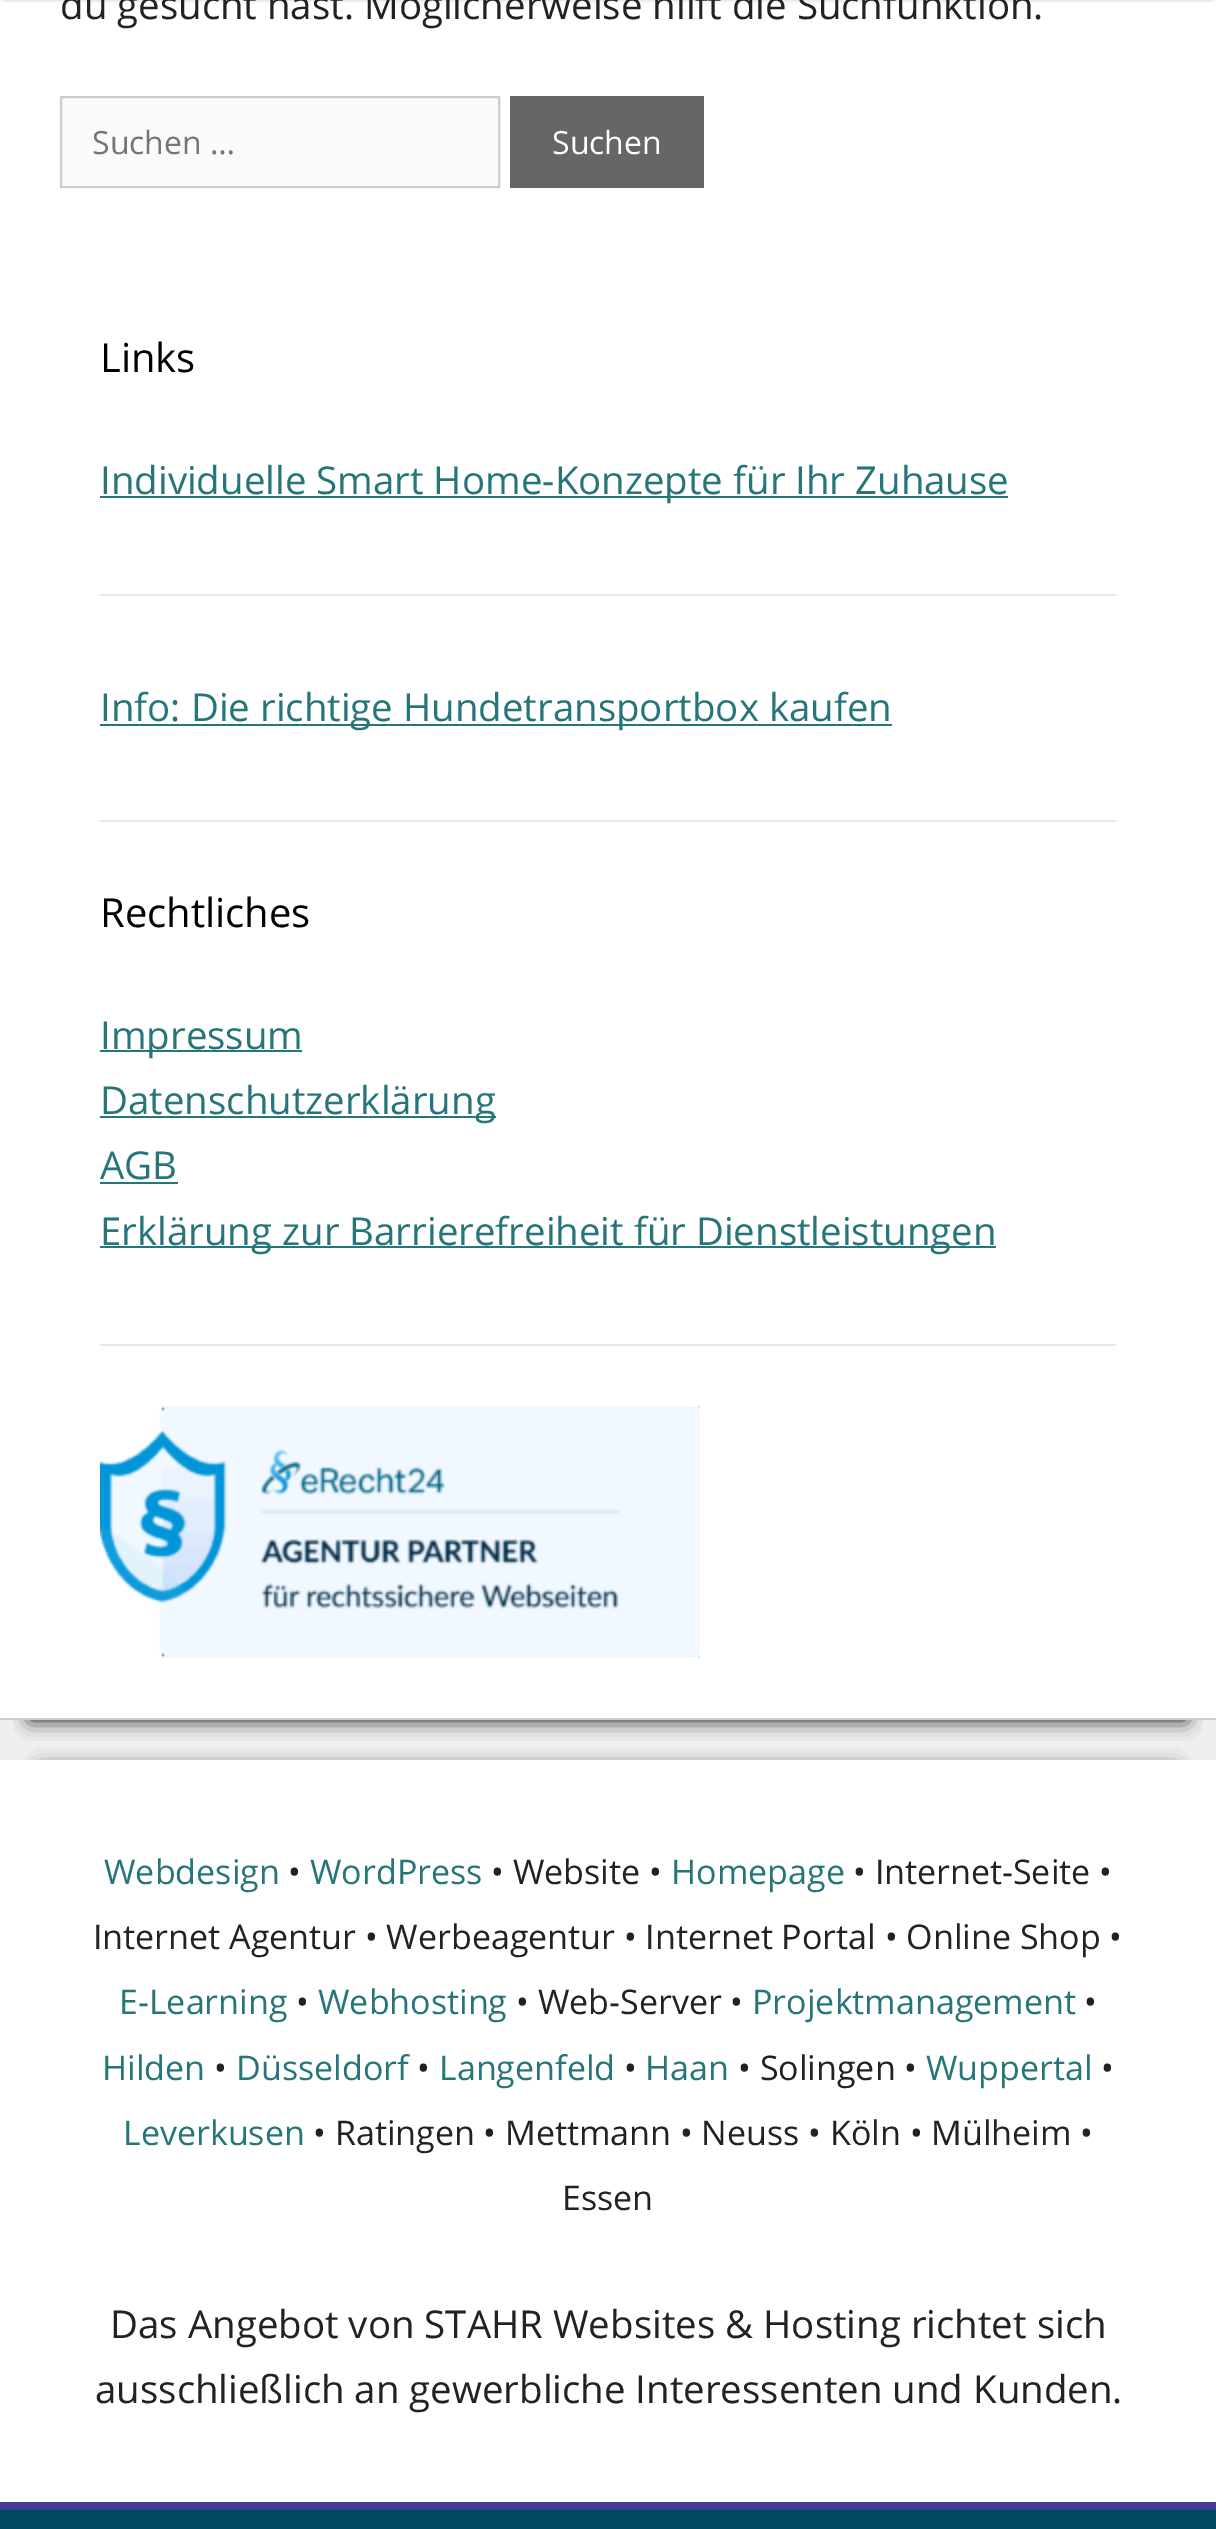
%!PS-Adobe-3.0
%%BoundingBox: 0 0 1216 2529
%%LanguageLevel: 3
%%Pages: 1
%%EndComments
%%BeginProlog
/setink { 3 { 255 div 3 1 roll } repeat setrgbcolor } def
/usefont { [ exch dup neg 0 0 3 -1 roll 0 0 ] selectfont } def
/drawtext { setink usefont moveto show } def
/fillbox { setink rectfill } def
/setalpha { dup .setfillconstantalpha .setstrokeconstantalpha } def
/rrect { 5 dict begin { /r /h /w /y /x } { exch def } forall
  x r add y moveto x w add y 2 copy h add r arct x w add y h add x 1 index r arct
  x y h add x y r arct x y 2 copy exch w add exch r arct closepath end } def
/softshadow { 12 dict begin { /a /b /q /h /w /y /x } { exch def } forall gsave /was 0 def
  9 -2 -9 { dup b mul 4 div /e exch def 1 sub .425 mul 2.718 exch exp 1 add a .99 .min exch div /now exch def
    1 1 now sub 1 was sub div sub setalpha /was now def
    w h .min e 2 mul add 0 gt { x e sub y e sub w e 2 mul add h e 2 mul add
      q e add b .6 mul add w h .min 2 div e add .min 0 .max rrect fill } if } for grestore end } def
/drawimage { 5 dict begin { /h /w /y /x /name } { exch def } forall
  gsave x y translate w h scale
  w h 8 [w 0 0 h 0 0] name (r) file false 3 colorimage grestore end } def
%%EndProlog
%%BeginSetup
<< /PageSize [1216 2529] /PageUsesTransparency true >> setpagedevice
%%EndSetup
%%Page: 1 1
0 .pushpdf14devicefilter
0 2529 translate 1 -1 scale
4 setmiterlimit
0 0 1216 2529 239 239 239 fillbox
0 0 1216 1718 255 255 255 fillbox
0 0 0 setink
4 -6 1208 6 0 2 0.2 softshadow
gsave
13 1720 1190 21 rectclip
17 17 17 setink
30 -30 1156 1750 0 10 1 softshadow
grestore
0 1718 1216 2 204 204 204 fillbox
(du gesucht hast. Möglicherweise hilft die Suchfunktion.) 60 19 /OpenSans-Regular 38.4 34 34 34 drawtext
250 250 250 setink
61 97 moveto 499 97 lineto 499 187 lineto 61 187 lineto closepath gsave fill grestore
204 204 204 setink
2 setlinewidth
stroke
(Suchen …) 92 154 /OpenSans-Regular 32 117 117 117 drawtext
510 96 194 92 102 102 102 fillbox
(Suchen) 552 154 /OpenSans-Regular 32 255 255 255 drawtext
(Links) 100 372 /OpenSans-Regular 40 0 0 0 drawtext
100 496 908 2 37 117 121 fillbox
(Individuelle Smart Home-Konzepte für Ihr Zuhause) 100 494 /OpenSans-Regular 38.4 37 117 121 drawtext
100 594 1016 2 230 230 230 fillbox
100 724 792 2 37 117 121 fillbox
(Info: Die richtige Hundetransportbox kaufen) 100 721 /OpenSans-Regular 38.4 37 117 121 drawtext
100 820 1016 2 230 230 230 fillbox
(Rechtliches) 100 927 /OpenSans-Regular 40 0 0 0 drawtext
100 1050 202 2 37 117 121 fillbox
(Impressum) 100 1049 /OpenSans-Regular 38.4 37 117 121 drawtext
100 1116 396 2 37 117 121 fillbox
(Datenschutzerklärung) 100 1114 /OpenSans-Regular 38.4 37 117 121 drawtext
(AGB) 100 1179 /OpenSans-Regular 38.4 37 117 121 drawtext
100 1182 78 2 37 117 121 fillbox
100 1246 896 2 37 117 121 fillbox
(Erklärung zur Barrierefreiheit für Dienstleistungen) 100 1245 /OpenSans-Regular 38.4 37 117 121 drawtext
100 1344 1016 2 230 230 230 fillbox
(assets/img1.rgb) 100 1406 600 252 drawimage
17 17 17 setink
40 1770 1136 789 0 10 1 softshadow
0 1760 1216 742 255 255 255 fillbox
(Webdesign) 104 1884 /OpenSans-Regular 34 37 117 121 drawtext
(•) 288 1884 /OpenSans-Regular 34 34 34 34 drawtext
(WordPress) 310 1884 /OpenSans-Regular 34 37 117 121 drawtext
(• Website •) 491 1884 /OpenSans-Regular 34 34 34 34 drawtext
(Homepage) 671 1884 /OpenSans-Regular 34 37 117 121 drawtext
(• Internet-Seite •) 853 1884 /OpenSans-Regular 34 34 34 34 drawtext
(Internet Agentur • Werbeagentur • Internet Portal • Online Shop •) 93 1949 /OpenSans-Regular 34 34 34 34 drawtext
(E-Learning) 119 2014 /OpenSans-Regular 34 37 117 121 drawtext
(•) 296 2014 /OpenSans-Regular 34 34 34 34 drawtext
(Webhosting) 318 2014 /OpenSans-Regular 34 37 117 121 drawtext
(• Web-Server •) 516 2014 /OpenSans-Regular 34 34 34 34 drawtext
(Projektmanagement) 752 2014 /OpenSans-Regular 34 37 117 121 drawtext
(•) 1084 2014 /OpenSans-Regular 34 34 34 34 drawtext
(Hilden) 102 2080 /OpenSans-Regular 34 37 117 121 drawtext
(•) 214 2080 /OpenSans-Regular 34 34 34 34 drawtext
(Düsseldorf) 236 2080 /OpenSans-Regular 34 37 117 121 drawtext
(•) 417 2080 /OpenSans-Regular 34 34 34 34 drawtext
(Langenfeld) 439 2080 /OpenSans-Regular 34 37 117 121 drawtext
(•) 624 2080 /OpenSans-Regular 34 34 34 34 drawtext
(Haan) 645 2080 /OpenSans-Regular 34 37 117 121 drawtext
(• Solingen •) 738 2080 /OpenSans-Regular 34 34 34 34 drawtext
(Wuppertal) 926 2080 /OpenSans-Regular 34 37 117 121 drawtext
(•) 1101 2080 /OpenSans-Regular 34 34 34 34 drawtext
(Leverkusen) 123 2145 /OpenSans-Regular 34 37 117 121 drawtext
(• Ratingen • Mettmann • Neuss • Köln • Mülheim •) 313 2145 /OpenSans-Regular 34 34 34 34 drawtext
(Essen) 562 2210 /OpenSans-Regular 34 34 34 34 drawtext
(Das Angebot von STAHR Websites & Hosting richtet sich) 110 2338 /OpenSans-Regular 38.4 34 34 34 drawtext
(ausschließlich an gewerbliche Interessenten und Kunden.) 95 2403 /OpenSans-Regular 38.4 34 34 34 drawtext
0 2510 1216 19 0 74 96 fillbox
0 2502 1216 8 69 60 152 fillbox
.poppdf14devicefilter showpage
%%EOF
